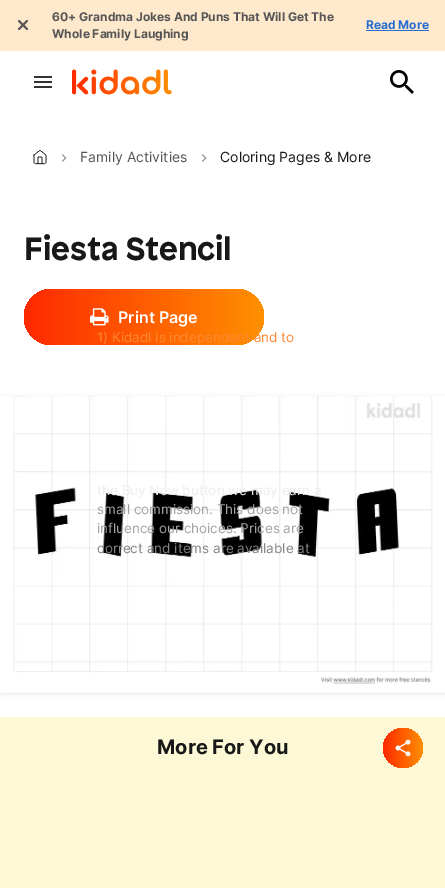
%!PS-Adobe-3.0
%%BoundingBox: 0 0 445 888
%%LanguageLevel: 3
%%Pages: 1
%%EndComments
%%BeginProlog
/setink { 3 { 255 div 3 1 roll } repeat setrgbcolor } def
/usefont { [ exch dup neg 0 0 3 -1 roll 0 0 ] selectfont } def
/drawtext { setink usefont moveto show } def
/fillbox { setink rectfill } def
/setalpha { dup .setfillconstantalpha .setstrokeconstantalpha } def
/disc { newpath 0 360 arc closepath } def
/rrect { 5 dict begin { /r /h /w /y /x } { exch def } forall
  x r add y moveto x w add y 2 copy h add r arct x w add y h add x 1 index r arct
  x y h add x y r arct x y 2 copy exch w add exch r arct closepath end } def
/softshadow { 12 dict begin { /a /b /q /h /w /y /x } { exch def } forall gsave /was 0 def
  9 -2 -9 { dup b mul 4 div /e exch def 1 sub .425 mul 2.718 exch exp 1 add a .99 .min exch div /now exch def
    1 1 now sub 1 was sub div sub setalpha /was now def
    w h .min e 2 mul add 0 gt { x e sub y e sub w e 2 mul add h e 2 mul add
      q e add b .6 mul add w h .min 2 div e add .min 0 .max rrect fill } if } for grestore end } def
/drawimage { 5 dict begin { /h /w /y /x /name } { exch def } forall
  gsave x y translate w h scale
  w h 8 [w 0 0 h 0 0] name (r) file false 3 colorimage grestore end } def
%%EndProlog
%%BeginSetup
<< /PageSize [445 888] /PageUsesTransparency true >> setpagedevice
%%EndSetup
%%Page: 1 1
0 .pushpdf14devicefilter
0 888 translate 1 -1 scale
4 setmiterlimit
0 0 445 888 255 255 255 fillbox
0 0 445 51 255 233 204 fillbox
(60+ Grandma Jokes And Puns That Will Get The) 52 21 /Inter-Bold 12 86 86 86 drawtext
(Whole Family Laughing) 52 38 /Inter-Bold 12 86 86 86 drawtext
90 90 90 setink
2 setlinewidth
1 setlinecap
1 setlinejoin
27 21 moveto 19 29 lineto 19 21 moveto 27 29 lineto stroke
(Read More) 366 29 /Inter-Bold 12 38 109 211 drawtext
366 30 63 1 38 109 211 fillbox
34 76 18 2 51 51 51 fillbox
34 81 18 2 51 51 51 fillbox
34 86 18 2 51 51 51 fillbox
(assets/img1.rgb) 72 69 100 26 drawimage
(assets/img2.rgb) 390 70 24 24 drawimage
(assets/img3.rgb) 33 150 14 15 drawimage
(assets/img4.rgb) 62 154 5 8 drawimage
(Family Activities) 80 162 /Inter-Regular 14 86 86 86 drawtext
(assets/img4.rgb) 202 154 5 8 drawimage
(Coloring Pages & More) 220 162 /Inter-Regular 14 24 24 24 drawtext
(Fiesta Stencil) 24 260 /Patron-Bold 32 24 24 24 drawtext
gsave 24 289 240 56 28 rrect clip newpath
<< /ShadingType 2 /ColorSpace /DeviceRGB /Coords [24 317 264 317] /Extend [true true] /Function << /FunctionType 2 /Domain [0 1] /C0 [0.996 0.161 0] /C1 [1 0.565 0] /N 1 >> >> shfill grestore
(assets/img5.rgb) 90 308 19 18 drawimage
(Print Page) 118 323 /Inter-SemiBold 16 255 255 255 drawtext
(1\) Kidadl is independent and to) 97 342 /Inter-Regular 13.5 255 136 51 drawtext
gsave
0 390 moveto 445 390 lineto 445 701 lineto 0 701 lineto closepath 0 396 moveto 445 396 lineto 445 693 lineto 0 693 lineto closepath eoclip newpath
0 0 0 setink
1 397 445 297 0 2 0.1 softshadow
grestore
(assets/img6.rgb) 13 396 420 288 drawimage
(the Buy Now button we may earn a) 97 495 /Inter-Regular 13.5 236 236 236 drawtext
(small commission. This does not) 97 514 /Inter-Regular 13.5 162 162 162 drawtext
(influence our choices. Prices are) 97 533 /Inter-Regular 13.5 162 162 162 drawtext
(correct and items are available at) 97 553 /Inter-Regular 13.5 132 132 132 drawtext
0 717 445 171 253 248 213 fillbox
(More For You) 157 754 /Inter-Bold 20 24 24 24 drawtext
gsave 403 748 20 disc clip newpath
<< /ShadingType 2 /ColorSpace /DeviceRGB /Coords [383 748 423 748] /Extend [true true] /Function << /FunctionType 2 /Domain [0 1] /C0 [0.996 0.161 0] /C1 [1 0.565 0] /N 1 >> >> shfill grestore
(assets/img7.rgb) 395 739 16 18 drawimage
.poppdf14devicefilter showpage
%%EOF
